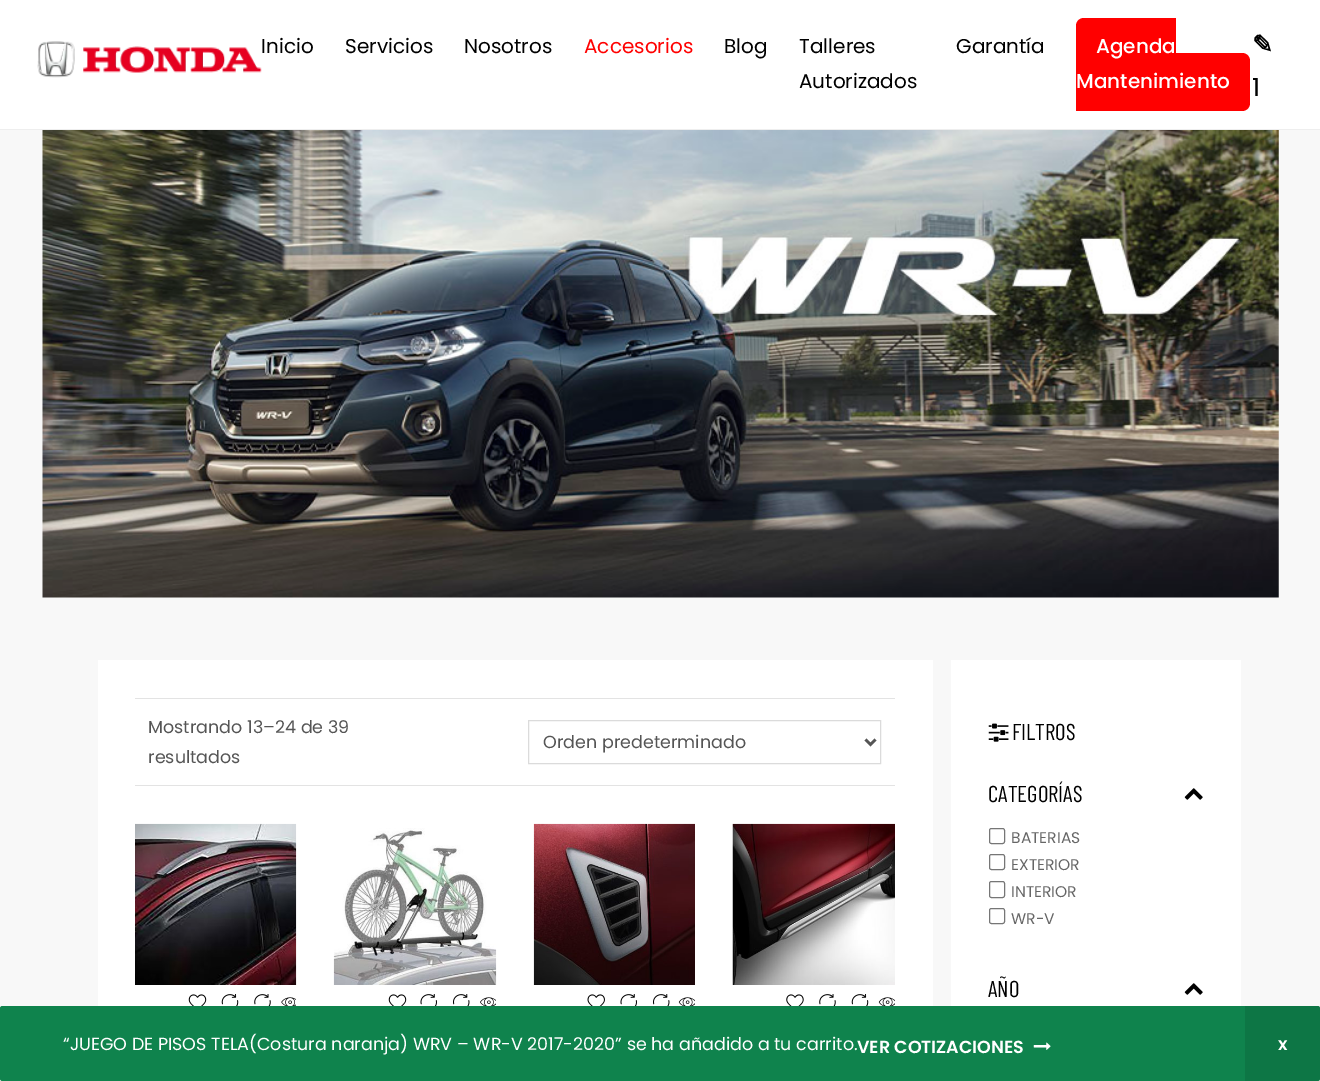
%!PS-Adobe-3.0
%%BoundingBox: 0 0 1320 1081
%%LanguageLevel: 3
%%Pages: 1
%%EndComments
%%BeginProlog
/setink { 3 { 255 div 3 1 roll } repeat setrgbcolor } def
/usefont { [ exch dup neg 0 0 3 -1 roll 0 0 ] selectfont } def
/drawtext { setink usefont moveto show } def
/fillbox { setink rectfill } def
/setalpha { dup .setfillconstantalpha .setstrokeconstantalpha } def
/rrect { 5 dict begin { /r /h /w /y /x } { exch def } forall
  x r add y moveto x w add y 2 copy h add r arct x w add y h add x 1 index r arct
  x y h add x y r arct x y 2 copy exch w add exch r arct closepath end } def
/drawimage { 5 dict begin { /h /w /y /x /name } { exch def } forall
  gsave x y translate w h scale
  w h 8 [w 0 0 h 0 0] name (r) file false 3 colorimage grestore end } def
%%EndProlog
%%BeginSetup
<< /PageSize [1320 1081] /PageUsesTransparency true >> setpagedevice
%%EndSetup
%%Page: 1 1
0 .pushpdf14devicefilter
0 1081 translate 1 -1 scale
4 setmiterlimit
0 0 1320 1081 248 248 248 fillbox
0 0 1320 129 255 255 255 fillbox
0 129 1320 1 238 238 238 fillbox
(assets/img1.rgb) 37 41 225 37 drawimage
(Inicio) 261 53 /Poppins-Regular 20 0 0 0 drawtext
(Servicios) 345 53 /Poppins-Regular 20 0 0 0 drawtext
(Nosotros) 464 53 /Poppins-Regular 20 0 0 0 drawtext
(Accesorios) 584 53 /Poppins-Regular 20 255 0 0 drawtext
(Blog) 724 53 /Poppins-Regular 20 0 0 0 drawtext
(Talleres) 799 53 /Poppins-Regular 20 0 0 0 drawtext
(Autorizados) 799 88 /Poppins-Regular 20 0 0 0 drawtext
(Garantía) 956 53 /Poppins-Regular 20 0 0 0 drawtext
255 0 0 setink
1084 18 moveto 1176 18 lineto 1176 76 lineto 1084 76 lineto 1079.5 76 1076 72.5 1076 68 curveto 1076 26 lineto 1076 21.5 1079.5 18 1084 18 curveto closepath fill
1076 53 moveto 1242 53 lineto 1246.5 53 1250 56.5 1250 61 curveto 1250 103 lineto 1250 107.5 1246.5 111 1242 111 curveto 1076 111 lineto closepath fill
(Agenda) 1096 53 /Poppins-Medium 20 255 255 255 drawtext
(Mantenimiento) 1076 88 /Poppins-Medium 20 255 255 255 drawtext
(✎) 1252 53 /DejaVuSans-Bold 25 0 0 0 drawtext
(1) 1252 96 /Poppins-Regular 25 0 0 0 drawtext
(assets/img2.rgb) 42 130 1237 468 drawimage
98 660 835 346 255 255 255 fillbox
135 698 760 1 227 227 227 fillbox
135 785 760 1 227 227 227 fillbox
(Mostrando 13–24 de 39) 148 733 /Poppins-Regular 17.5 85 85 85 drawtext
(resultados) 148 763 /Poppins-Regular 17.5 85 85 85 drawtext
219 219 219 setink
528.5 720.5 352 43 rectstroke
85 85 85 setink
2.5 setlinewidth
865.5 739.5 moveto 870.5 744.5 lineto 875.5 739.5 lineto stroke
(Orden predeterminado) 543 748 /Poppins-Regular 17.5 85 85 85 drawtext
(assets/img3.rgb) 135 823 162 162 drawimage
(assets/img4.rgb) 188 994 19 12 drawimage
(assets/img5.rgb) 221 994 18 12 drawimage
(assets/img6.rgb) 254 994 17 12 drawimage
(assets/img7.rgb) 281 997 15 9 drawimage
(assets/img8.rgb) 333 828 164 157 drawimage
(assets/img4.rgb) 388 994 19 12 drawimage
(assets/img9.rgb) 420 994 17 12 drawimage
(assets/img10.rgb) 453 994 17 12 drawimage
(assets/img11.rgb) 480 997 16 9 drawimage
(assets/img12.rgb) 533 823 162 162 drawimage
(assets/img13.rgb) 587 994 18 12 drawimage
(assets/img9.rgb) 620 994 17 12 drawimage
(assets/img10.rgb) 653 994 17 12 drawimage
(assets/img14.rgb) 678 997 17 9 drawimage
(assets/img15.rgb) 732 823 163 162 drawimage
(assets/img16.rgb) 786 994 18 12 drawimage
(assets/img6.rgb) 819 994 17 12 drawimage
(assets/img5.rgb) 851 994 18 12 drawimage
(assets/img14.rgb) 878 997 17 9 drawimage
15 131 77 setink
0 1006 1320 75 2.5 rrect fill
(“JUEGO DE PISOS TELA\(Costura naranja\) WRV – WR-V 2017-2020” se ha añadido a tu carrito.) 63 1050 /Poppins-Regular 17.5 255 255 255 drawtext
(VER COTIZACIONES) 857 1053 /Poppins-SemiBold 17.5 255 255 255 drawtext
(assets/img17.rgb) 1033 1042 18 8 drawimage
0.1 setalpha
1245 1006 75 75 0 0 0 fillbox
1 setalpha
(x) 1278 1050 /Poppins-SemiBold 17.5 255 255 255 drawtext
951 660 290 346 255 255 255 fillbox
(assets/img18.rgb) 988 723 21 19 drawimage
(FILTROS) 1012 740 /BarlowCondensed-Regular 23 0 0 0 drawtext
(CATEGORÍAS) 988 802 /BarlowCondensed-Regular 23 0 0 0 drawtext
(assets/img19.rgb) 1184 788 19 12 drawimage
118 118 118 setink
1 setlinewidth
989.5 828.5 15 15 2 rrect stroke
(BATERIAS) 1011 843 /Poppins-Regular 15.5 102 102 102 drawtext
118 118 118 setink
989.5 854.5 15 15 2 rrect stroke
(EXTERIOR) 1011 870 /Poppins-Regular 15.5 102 102 102 drawtext
118 118 118 setink
989.5 881.5 15 16 2 rrect stroke
(INTERIOR) 1011 897 /Poppins-Regular 15.5 102 102 102 drawtext
118 118 118 setink
989.5 908.5 15 15 2 rrect stroke
(WR-V) 1011 924 /Poppins-Regular 15.5 102 102 102 drawtext
(AÑO) 988 997 /BarlowCondensed-Regular 23 0 0 0 drawtext
(assets/img19.rgb) 1184 983 19 12 drawimage
.poppdf14devicefilter showpage
%%EOF
